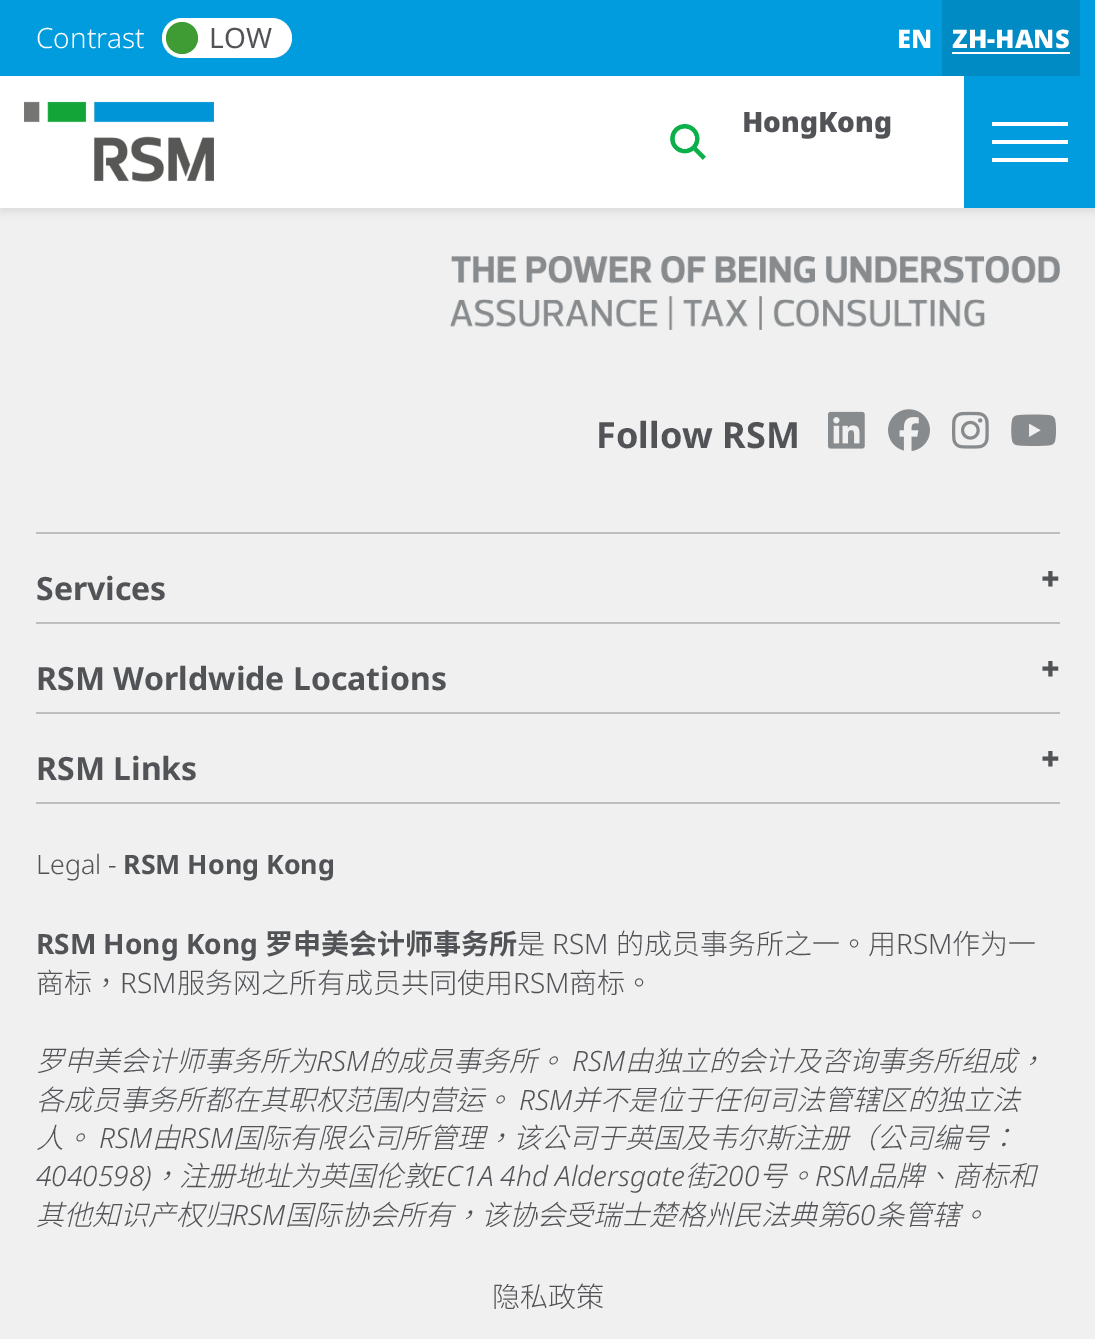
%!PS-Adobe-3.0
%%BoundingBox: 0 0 1095 1339
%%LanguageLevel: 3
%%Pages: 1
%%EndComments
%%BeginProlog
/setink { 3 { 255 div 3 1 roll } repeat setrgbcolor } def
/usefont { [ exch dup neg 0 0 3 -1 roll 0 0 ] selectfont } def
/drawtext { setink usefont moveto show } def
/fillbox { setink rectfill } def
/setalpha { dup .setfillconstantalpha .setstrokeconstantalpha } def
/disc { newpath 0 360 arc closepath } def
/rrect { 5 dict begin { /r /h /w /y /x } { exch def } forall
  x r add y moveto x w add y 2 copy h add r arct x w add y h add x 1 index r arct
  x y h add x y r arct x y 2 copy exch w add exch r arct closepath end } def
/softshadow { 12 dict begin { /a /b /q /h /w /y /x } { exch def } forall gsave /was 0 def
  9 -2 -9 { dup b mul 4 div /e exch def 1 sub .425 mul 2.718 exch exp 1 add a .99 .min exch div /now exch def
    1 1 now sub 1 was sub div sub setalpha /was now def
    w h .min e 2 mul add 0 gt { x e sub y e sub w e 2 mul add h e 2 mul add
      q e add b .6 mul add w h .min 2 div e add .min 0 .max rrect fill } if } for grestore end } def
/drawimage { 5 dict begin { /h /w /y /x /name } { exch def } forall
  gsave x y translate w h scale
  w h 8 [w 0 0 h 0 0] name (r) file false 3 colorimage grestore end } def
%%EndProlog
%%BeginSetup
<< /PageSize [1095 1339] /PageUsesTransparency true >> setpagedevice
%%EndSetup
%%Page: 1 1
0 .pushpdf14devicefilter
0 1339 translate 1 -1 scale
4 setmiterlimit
0 0 1095 1339 240 240 240 fillbox
0 0 0 setink
0 4 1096 208 0 4 0.07 softshadow
0 76 964 132 255 255 255 fillbox
0 0 1095 76 0 156 222 fillbox
(Contrast) 36 48 /NotoSans-Light 28 255 255 255 drawtext
162 18 130 40 20 rrect fill
63 156 53 setink
182 38 16 disc fill
(LOW) 209 48 /NotoSans-Regular 28 81 83 86 drawtext
(EN) 897 48 /NotoSans-Black 25.5 255 255 255 drawtext
942 0 138 76 0 139 197 fillbox
(ZH-HANS) 952 48 /NotoSans-Black 25.5 255 255 255 drawtext
952 52 118 2 255 255 255 fillbox
(assets/img1.rgb) 24 101 190 81 drawimage
(assets/img2.rgb) 670 124 36 36 drawimage
(HongKong) 742 132 /NotoSans-Black 28 81 83 86 drawtext
964 76 131 132 0 156 222 fillbox
992 122 76 4 255 255 255 fillbox
992 140 76 4 255 255 255 fillbox
992 158 76 4 255 255 255 fillbox
(assets/img3.rgb) 450 256 610 74 drawimage
(Follow RSM) 596 448 /NotoSans-Bold 36 81 83 86 drawtext
(assets/img4.rgb) 828 411 37 38 drawimage
(assets/img5.rgb) 888 409 42 42 drawimage
(assets/img6.rgb) 952 411 37 38 drawimage
(assets/img7.rgb) 1011 414 45 32 drawimage
36 532 1024 2 190 190 190 fillbox
36 622 1024 2 190 190 190 fillbox
(Services) 36 600 /NotoSans-Bold 32 81 83 86 drawtext
(+) 1041 590 /NotoSans-Black 32 81 83 86 drawtext
36 712 1024 2 190 190 190 fillbox
(RSM Worldwide Locations) 36 690 /NotoSans-Bold 32 81 83 86 drawtext
(+) 1041 680 /NotoSans-Black 32 81 83 86 drawtext
36 802 1024 2 190 190 190 fillbox
(RSM Links) 36 780 /NotoSans-Bold 32 81 83 86 drawtext
(+) 1041 770 /NotoSans-Black 32 81 83 86 drawtext
(Legal -) 36 874 /NotoSans-Light 26.75 81 83 86 drawtext
(RSM Hong Kong) 123 874 /NotoSans-Bold 26.75 81 83 86 drawtext
(RSM Hong Kong) 36 954 /NotoSans-Bold 28 81 83 86 drawtext
(罗) 265 954 /NotoSansSC-Bold 28 81 83 86 drawtext
(申美会) 293 954 /NotoSansTC-Bold 28 81 83 86 drawtext
(计师) 377 954 /NotoSansSC-Bold 28 81 83 86 drawtext
(事务所) 433 954 /NotoSansTC-Bold 28 81 83 86 drawtext
(是) 517 954 /NotoSansTC-Light 28 81 83 86 drawtext
(RSM) 552 954 /NotoSans-Light 28 81 83 86 drawtext
(的成) 616 954 /NotoSansTC-Light 28 81 83 86 drawtext
(员) 672 954 /NotoSansSC-Light 28 81 83 86 drawtext
(事务所之一。用) 700 954 /NotoSansTC-Light 28 81 83 86 drawtext
(RSM) 896 954 /NotoSans-Light 28 81 83 86 drawtext
(作) 952 954 /NotoSansTC-Light 28 81 83 86 drawtext
(为) 980 954 /NotoSansSC-Light 28 81 83 86 drawtext
(一) 1008 954 /NotoSansTC-Light 28 81 83 86 drawtext
(商) 36 993 /NotoSansTC-Light 28 81 83 86 drawtext
(标) 64 993 /NotoSansSC-Light 28 81 83 86 drawtext
(，) 92 993 /NotoSansTC-Light 28 81 83 86 drawtext
(RSM) 120 993 /NotoSans-Light 28 81 83 86 drawtext
(服务网之所有成) 177 993 /NotoSansTC-Light 28 81 83 86 drawtext
(员) 373 993 /NotoSansSC-Light 28 81 83 86 drawtext
(共同使用) 401 993 /NotoSansTC-Light 28 81 83 86 drawtext
(RSM) 513 993 /NotoSans-Light 28 81 83 86 drawtext
(商) 569 993 /NotoSansTC-Light 28 81 83 86 drawtext
(标) 597 993 /NotoSansSC-Light 28 81 83 86 drawtext
(。) 625 993 /NotoSansTC-Light 28 81 83 86 drawtext
(罗) 36 1071 /NotoSansSC-LightItalic 28 81 83 86 drawtext
(申美会) 64 1071 /NotoSansTC-LightItalic 28 81 83 86 drawtext
(计师) 148 1071 /NotoSansSC-LightItalic 28 81 83 86 drawtext
(事务所) 204 1071 /NotoSansTC-LightItalic 28 81 83 86 drawtext
(为) 288 1071 /NotoSansSC-LightItalic 28 81 83 86 drawtext
(RSM) 316 1071 /NotoSans-LightItalic 28 81 83 86 drawtext
(的成) 369 1071 /NotoSansTC-LightItalic 28 81 83 86 drawtext
(员) 425 1071 /NotoSansSC-LightItalic 28 81 83 86 drawtext
(事务所。) 453 1071 /NotoSansTC-LightItalic 28 81 83 86 drawtext
(RSM) 572 1071 /NotoSans-LightItalic 28 81 83 86 drawtext
(由) 625 1071 /NotoSansTC-LightItalic 28 81 83 86 drawtext
(独) 653 1071 /NotoSansSC-LightItalic 28 81 83 86 drawtext
(立的会) 681 1071 /NotoSansTC-LightItalic 28 81 83 86 drawtext
(计) 765 1071 /NotoSansSC-LightItalic 28 81 83 86 drawtext
(及咨询事务所) 793 1071 /NotoSansTC-LightItalic 28 81 83 86 drawtext
(组) 961 1071 /NotoSansSC-LightItalic 28 81 83 86 drawtext
(成，) 989 1071 /NotoSansTC-LightItalic 28 81 83 86 drawtext
(各成) 36 1110 /NotoSansTC-LightItalic 28 81 83 86 drawtext
(员) 92 1110 /NotoSansSC-LightItalic 28 81 83 86 drawtext
(事务所都在其) 120 1110 /NotoSansTC-LightItalic 28 81 83 86 drawtext
(职权) 288 1110 /NotoSansSC-LightItalic 28 81 83 86 drawtext
(范) 344 1110 /NotoSansTC-LightItalic 28 81 83 86 drawtext
(围内营) 372 1110 /NotoSansSC-LightItalic 28 81 83 86 drawtext
(运。) 456 1110 /NotoSansTC-LightItalic 28 81 83 86 drawtext
(RSM) 519 1110 /NotoSans-LightItalic 28 81 83 86 drawtext
(并不是位于任何司法管) 572 1110 /NotoSansTC-LightItalic 28 81 83 86 drawtext
(辖区) 852 1110 /NotoSansSC-LightItalic 28 81 83 86 drawtext
(的) 908 1110 /NotoSansTC-LightItalic 28 81 83 86 drawtext
(独) 936 1110 /NotoSansSC-LightItalic 28 81 83 86 drawtext
(立法) 964 1110 /NotoSansTC-LightItalic 28 81 83 86 drawtext
(人。) 36 1148 /NotoSansTC-LightItalic 28 81 83 86 drawtext
(RSM) 99 1148 /NotoSans-LightItalic 28 81 83 86 drawtext
(由) 152 1148 /NotoSansTC-LightItalic 28 81 83 86 drawtext
(RSM) 180 1148 /NotoSans-LightItalic 28 81 83 86 drawtext
(国际有限公司所管理，) 233 1148 /NotoSansTC-LightItalic 28 81 83 86 drawtext
(该) 513 1148 /NotoSansSC-LightItalic 28 81 83 86 drawtext
(公司于英国及韦尔斯注) 541 1148 /NotoSansTC-LightItalic 28 81 83 86 drawtext
(册) 821 1148 /NotoSansSC-LightItalic 28 81 83 86 drawtext
(（公司) 849 1148 /NotoSansTC-LightItalic 28 81 83 86 drawtext
(编) 933 1148 /NotoSansSC-LightItalic 28 81 83 86 drawtext
(号：) 961 1148 /NotoSansTC-LightItalic 28 81 83 86 drawtext
(4040598\)) 36 1186 /NotoSans-LightItalic 28 81 83 86 drawtext
(，注) 151 1186 /NotoSansTC-LightItalic 28 81 83 86 drawtext
(册) 207 1186 /NotoSansSC-LightItalic 28 81 83 86 drawtext
(地址) 235 1186 /NotoSansTC-LightItalic 28 81 83 86 drawtext
(为) 291 1186 /NotoSansSC-LightItalic 28 81 83 86 drawtext
(英国) 319 1186 /NotoSansTC-LightItalic 28 81 83 86 drawtext
(伦) 375 1186 /NotoSansSC-LightItalic 28 81 83 86 drawtext
(敦) 403 1186 /NotoSansTC-LightItalic 28 81 83 86 drawtext
(EC1A 4hd Aldersgate) 431 1186 /NotoSans-LightItalic 28 81 83 86 drawtext
(街) 685 1186 /NotoSansTC-LightItalic 28 81 83 86 drawtext
(200) 713 1186 /NotoSans-LightItalic 28 81 83 86 drawtext
(号。) 759 1186 /NotoSansTC-LightItalic 28 81 83 86 drawtext
(RSM) 815 1186 /NotoSans-LightItalic 28 81 83 86 drawtext
(品牌、商) 868 1186 /NotoSansTC-LightItalic 28 81 83 86 drawtext
(标) 980 1186 /NotoSansSC-LightItalic 28 81 83 86 drawtext
(和) 1008 1186 /NotoSansTC-LightItalic 28 81 83 86 drawtext
(其他知) 36 1225 /NotoSansTC-LightItalic 28 81 83 86 drawtext
(识产权归) 120 1225 /NotoSansSC-LightItalic 28 81 83 86 drawtext
(RSM) 232 1225 /NotoSans-LightItalic 28 81 83 86 drawtext
(国际) 285 1225 /NotoSansTC-LightItalic 28 81 83 86 drawtext
(协) 341 1225 /NotoSansSC-LightItalic 28 81 83 86 drawtext
(会所有，) 369 1225 /NotoSansTC-LightItalic 28 81 83 86 drawtext
(该协) 481 1225 /NotoSansSC-LightItalic 28 81 83 86 drawtext
(会受瑞士楚格州民法典第) 537 1225 /NotoSansTC-LightItalic 28 81 83 86 drawtext
(60) 845 1225 /NotoSans-LightItalic 28 81 83 86 drawtext
(条管) 876 1225 /NotoSansTC-LightItalic 28 81 83 86 drawtext
(辖) 932 1225 /NotoSansSC-LightItalic 28 81 83 86 drawtext
(。) 960 1225 /NotoSansTC-LightItalic 28 81 83 86 drawtext
(隐) 492 1307 /NotoSansSC-Light 28 81 83 86 drawtext
(私政策) 520 1307 /NotoSansTC-Light 28 81 83 86 drawtext
.poppdf14devicefilter showpage
%%EOF
